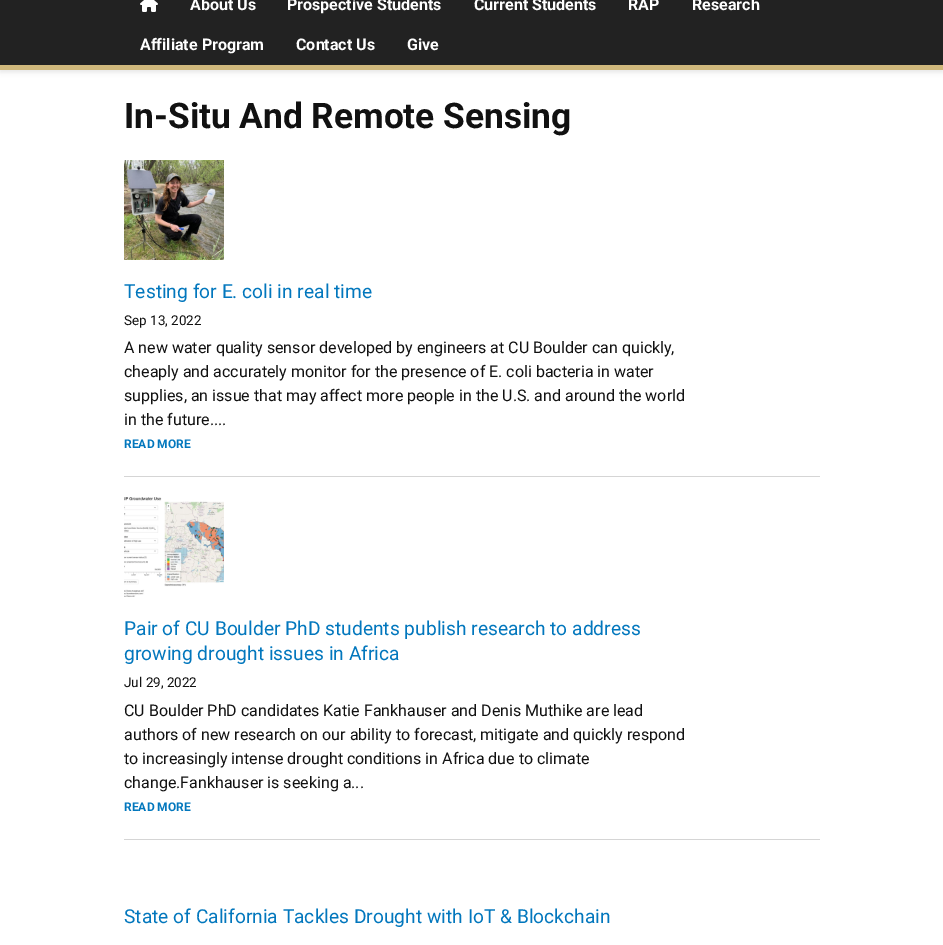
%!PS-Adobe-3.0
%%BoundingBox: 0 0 943 945
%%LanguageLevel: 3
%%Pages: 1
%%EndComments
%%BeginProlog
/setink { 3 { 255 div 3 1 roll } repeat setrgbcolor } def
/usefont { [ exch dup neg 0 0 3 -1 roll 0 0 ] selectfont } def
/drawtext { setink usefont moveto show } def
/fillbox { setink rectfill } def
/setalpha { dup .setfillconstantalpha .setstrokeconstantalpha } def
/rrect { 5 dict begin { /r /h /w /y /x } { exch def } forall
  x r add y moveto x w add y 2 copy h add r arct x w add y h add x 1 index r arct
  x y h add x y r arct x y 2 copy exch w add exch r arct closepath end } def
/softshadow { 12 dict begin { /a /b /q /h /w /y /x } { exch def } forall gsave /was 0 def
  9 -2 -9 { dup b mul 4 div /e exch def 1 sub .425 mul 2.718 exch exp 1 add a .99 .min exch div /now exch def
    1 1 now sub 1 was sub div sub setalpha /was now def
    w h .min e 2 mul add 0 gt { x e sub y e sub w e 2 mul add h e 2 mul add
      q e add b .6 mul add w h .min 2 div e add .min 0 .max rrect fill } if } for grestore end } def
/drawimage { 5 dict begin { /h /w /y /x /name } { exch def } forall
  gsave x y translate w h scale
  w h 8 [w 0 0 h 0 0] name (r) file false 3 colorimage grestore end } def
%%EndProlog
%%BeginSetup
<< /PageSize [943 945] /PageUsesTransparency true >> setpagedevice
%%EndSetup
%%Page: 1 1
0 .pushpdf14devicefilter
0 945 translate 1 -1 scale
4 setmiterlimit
0 0 943 945 255 255 255 fillbox
0 0 0 setink
0 -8 943 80 0 2.5 0.1 softshadow
0 0 943 65 34 34 34 fillbox
0 65 943 5 207 184 124 fillbox
(assets/img1.rgb) 140 0 18 12 drawimage
(About Us) 190 10 /Roboto-Bold 16 255 255 255 drawtext
(Prospective Students) 287 10 /Roboto-Bold 16 255 255 255 drawtext
(Current Students) 474 10 /Roboto-Bold 16 255 255 255 drawtext
(RAP) 628 10 /Roboto-Bold 16 255 255 255 drawtext
(Research) 692 10 /Roboto-Bold 16 255 255 255 drawtext
(Affiliate Program) 140 50 /Roboto-Bold 16 255 255 255 drawtext
(Contact Us) 296 50 /Roboto-Bold 16 255 255 255 drawtext
(Give) 407 50 /Roboto-Bold 16 255 255 255 drawtext
(In-Situ And Remote Sensing) 124 128 /Roboto-Bold 35.25 17 17 17 drawtext
124 476 696 1 213 213 213 fillbox
(assets/img2.rgb) 124 160 100 100 drawimage
(Testing for E. coli in real time) 124 298 /Roboto-Regular 19.2 2 119 189 drawtext
(Sep 13, 2022) 124 325 /Roboto-Regular 13.5 17 17 17 drawtext
(A new water quality sensor developed by engineers at CU Boulder can quickly,) 124 353 /Roboto-Regular 16 17 17 17 drawtext
(cheaply and accurately monitor for the presence of E. coli bacteria in water) 124 377 /Roboto-Regular 16 17 17 17 drawtext
(supplies, an issue that may affect more people in the U.S. and around the world) 124 401 /Roboto-Regular 16 17 17 17 drawtext
(in the future....) 124 425 /Roboto-Regular 16 17 17 17 drawtext
(READ MORE) 124 448 /Roboto-Bold 12 2 119 189 drawtext
124 839 696 1 213 213 213 fillbox
(assets/img3.rgb) 124 497 100 100 drawimage
(Pair of CU Boulder PhD students publish research to address) 124 635 /Roboto-Regular 19.2 2 119 189 drawtext
(growing drought issues in Africa) 124 660 /Roboto-Regular 19.2 2 119 189 drawtext
(Jul 29, 2022) 124 687 /Roboto-Regular 13.5 17 17 17 drawtext
(CU Boulder PhD candidates Katie Fankhauser and Denis Muthike are lead) 124 716 /Roboto-Regular 16 17 17 17 drawtext
(authors of new research on our ability to forecast, mitigate and quickly respond) 124 740 /Roboto-Regular 16 17 17 17 drawtext
(to increasingly intense drought conditions in Africa due to climate) 124 764 /Roboto-Regular 16 17 17 17 drawtext
(change.Fankhauser is seeking a...) 124 788 /Roboto-Regular 16 17 17 17 drawtext
(READ MORE) 124 811 /Roboto-Bold 12 2 119 189 drawtext
(State of California Tackles Drought with IoT & Blockchain) 124 923 /Roboto-Regular 19.2 2 119 189 drawtext
.poppdf14devicefilter showpage
%%EOF
